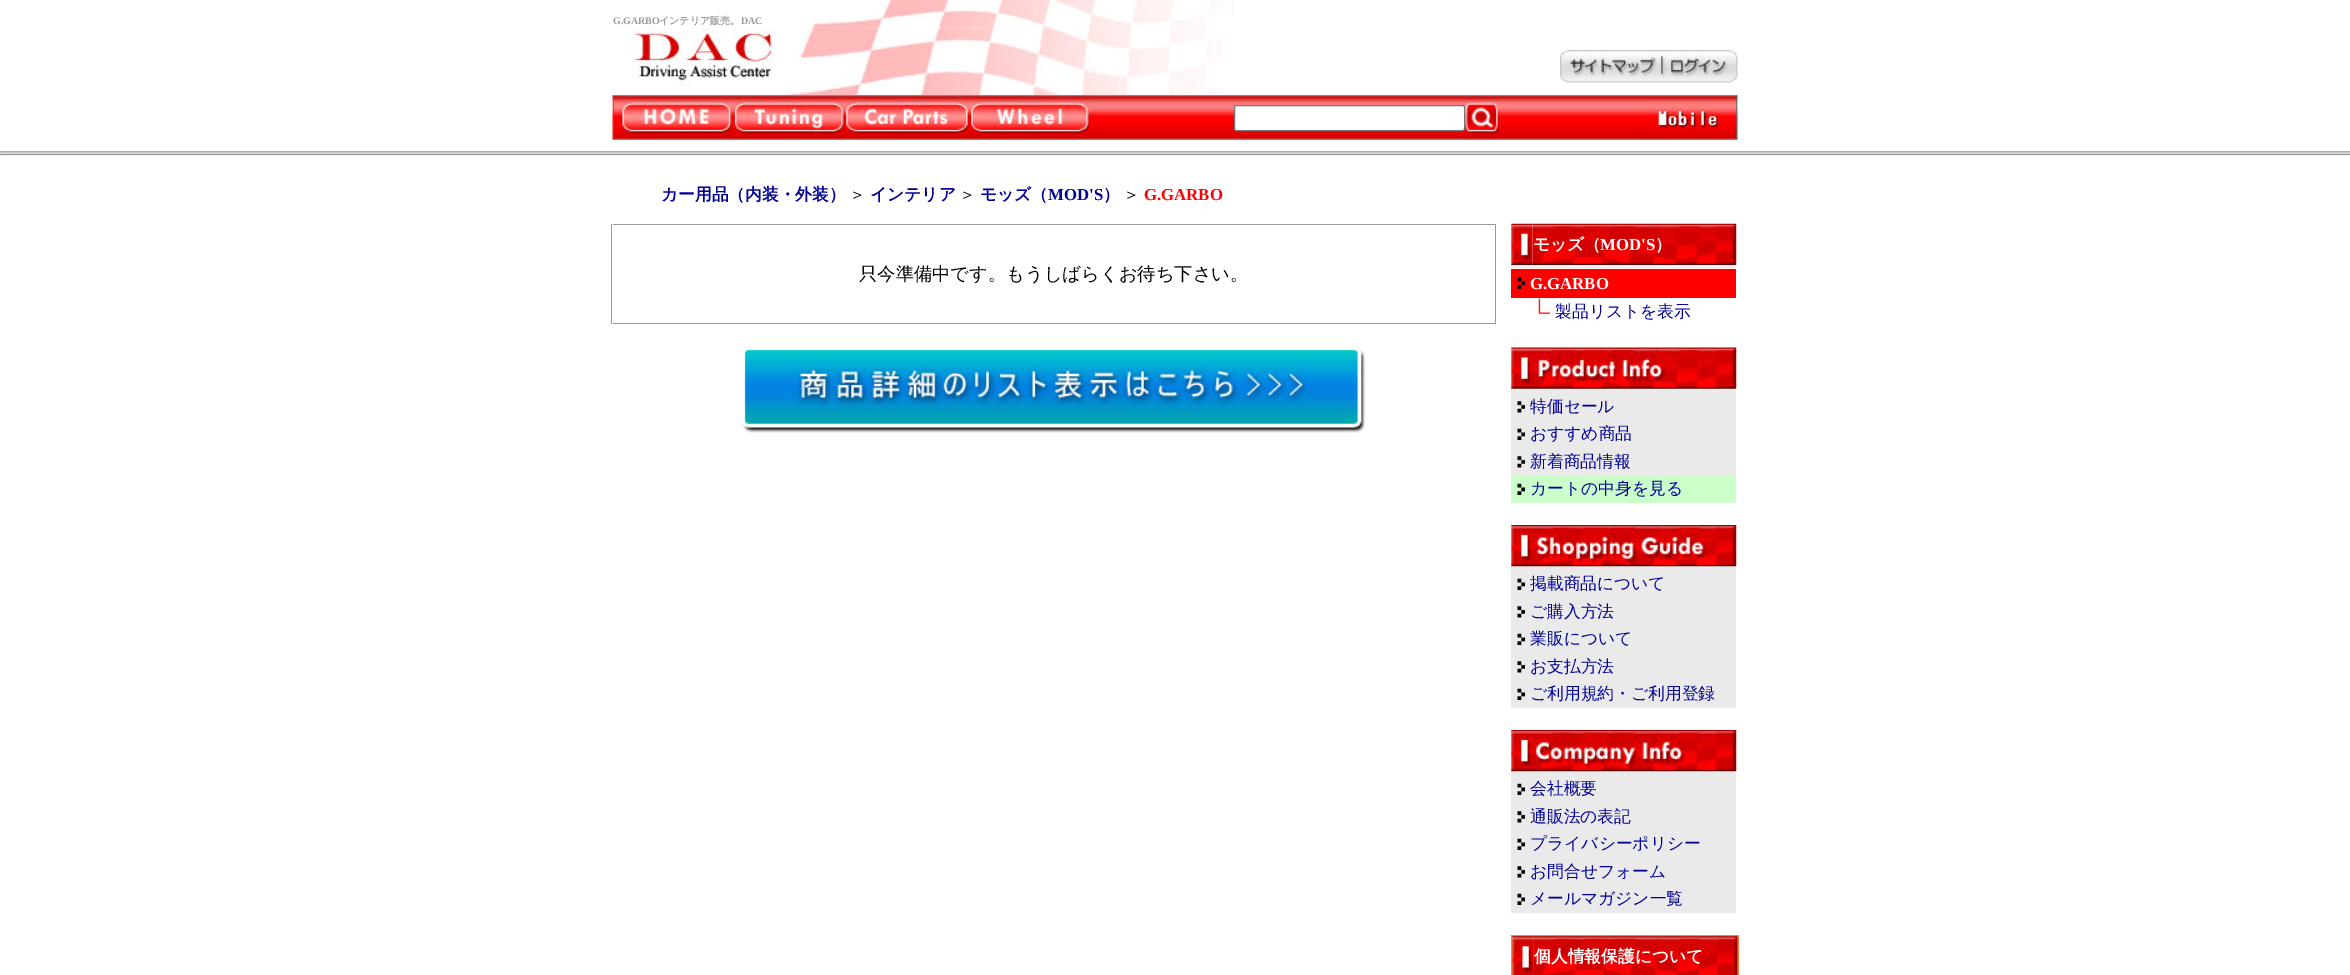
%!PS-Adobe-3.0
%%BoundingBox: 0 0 2350 975
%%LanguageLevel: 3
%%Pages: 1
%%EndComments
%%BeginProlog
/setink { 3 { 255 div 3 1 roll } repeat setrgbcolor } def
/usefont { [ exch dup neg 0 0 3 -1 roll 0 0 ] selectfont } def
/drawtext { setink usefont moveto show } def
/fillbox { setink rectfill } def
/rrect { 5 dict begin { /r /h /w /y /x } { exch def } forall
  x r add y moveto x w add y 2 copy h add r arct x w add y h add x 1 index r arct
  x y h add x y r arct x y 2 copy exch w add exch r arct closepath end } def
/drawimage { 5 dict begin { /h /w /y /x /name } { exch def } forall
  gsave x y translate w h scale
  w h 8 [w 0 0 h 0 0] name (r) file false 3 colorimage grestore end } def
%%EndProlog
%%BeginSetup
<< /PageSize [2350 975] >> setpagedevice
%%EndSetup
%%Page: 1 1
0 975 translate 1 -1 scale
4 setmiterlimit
0 0 2350 975 255 255 255 fillbox
(assets/img1.rgb) 812 0 422 28 drawimage
(G.GARBO) 613 24 /LiberationSerif-Bold 10 153 153 153 drawtext
(インテリア販売。) 659 24 /WenQuanYiZenHei-Bold 10 153 153 153 drawtext
(DAC) 741 24 /LiberationSerif-Bold 10 153 153 153 drawtext
(assets/img2.rgb) 1560 50 102 33 drawimage
(assets/img3.rgb) 1661 50 77 33 drawimage
(assets/img4.rgb) 632 27 591 68 drawimage
(assets/img5.rgb) 612 95 1126 45 drawimage
613 95 1 45 102 102 102 fillbox
(assets/img6.rgb) 613 95 7 45 drawimage
(assets/img7.rgb) 620 95 113 44 drawimage
(assets/img8.rgb) 732 95 113 44 drawimage
(assets/img9.rgb) 845 95 125 44 drawimage
(assets/img10.rgb) 970 95 120 44 drawimage
255 255 255 setink
1234.5 105.5 230 25 2 rrect gsave fill grestore
118 118 118 setink
stroke
(assets/img11.rgb) 1465 95 34 44 drawimage
1736 95 1 45 102 102 102 fillbox
(assets/img12.rgb) 1641 95 96 45 drawimage
(assets/img13.rgb) 0 151 2350 5 drawimage
(assets/img14.rgb) 0 153 4 2 drawimage
(カー用品（内装・外装）) 661 200 /WenQuanYiZenHei-Bold 16.75 0 0 153 drawtext
(＞) 849 200 /WenQuanYiZenHei-Medium 16.75 0 0 0 drawtext
(インテリア) 870 200 /WenQuanYiZenHei-Bold 16.75 0 0 153 drawtext
(＞) 959 200 /WenQuanYiZenHei-Medium 16.75 0 0 0 drawtext
(モッズ（) 980 200 /WenQuanYiZenHei-Bold 16.75 0 0 153 drawtext
(MOD'S) 1048 200 /LiberationSerif-Bold 16.75 0 0 153 drawtext
(）) 1103 200 /WenQuanYiZenHei-Bold 16.75 0 0 153 drawtext
(＞) 1123 200 /WenQuanYiZenHei-Medium 16.75 0 0 0 drawtext
(G.GARBO) 1144 200 /LiberationSerif-Bold 16.75 255 0 0 drawtext
611 224 1 100 153 153 153 fillbox
613 224 883 1 153 153 153 fillbox
(只今準備中です。もうしばらくお待ち下さい。) 859 280 /WenQuanYiZenHei-Medium 18.3 0 0 0 drawtext
1495 225 1 98 153 153 153 fillbox
613 323 883 1 153 153 153 fillbox
(assets/img15.rgb) 741 346 625 87 drawimage
(assets/img17.rgb) 1532 223 205 42 drawimage
(assets/img16.rgb) 1511 223 22 42 drawimage
(モッズ（) 1533 250 /WenQuanYiZenHei-Bold 16.75 255 255 255 drawtext
(MOD'S) 1600 250 /LiberationSerif-Bold 16.75 255 255 255 drawtext
(）) 1655 250 /WenQuanYiZenHei-Bold 16.75 255 255 255 drawtext
1511 265 225 4 255 236 236 fillbox
1511 269 225 29 255 0 0 fillbox
(assets/img18.rgb) 1517 277 8 12 drawimage
(G.GARBO) 1530 289 /LiberationSerif-Bold 16.75 255 255 255 drawtext
(assets/img19.rgb) 1538 298 13 16 drawimage
(製品リストを表示) 1555 317 /WenQuanYiZenHei-Medium 16.75 0 0 153 drawtext
(assets/img20.rgb) 1511 347 226 42 drawimage
1511 389 225 4 234 234 234 fillbox
1511 393 225 27 234 234 234 fillbox
(assets/img21.rgb) 1517 401 8 12 drawimage
(特価セール) 1530 412 /WenQuanYiZenHei-Medium 16.75 0 0 153 drawtext
1511 420 225 28 234 234 234 fillbox
(assets/img22.rgb) 1517 428 8 12 drawimage
(おすすめ商品) 1530 439 /WenQuanYiZenHei-Medium 16.75 0 0 153 drawtext
1511 448 225 27 234 234 234 fillbox
(assets/img21.rgb) 1517 456 8 12 drawimage
(新着商品情報) 1530 467 /WenQuanYiZenHei-Medium 16.75 0 0 153 drawtext
1511 475 225 28 202 255 202 fillbox
(assets/img23.rgb) 1517 483 8 12 drawimage
(カートの中身を見る) 1530 494 /WenQuanYiZenHei-Medium 16.75 0 0 153 drawtext
1511 566 225 4 234 234 234 fillbox
(assets/img24.rgb) 1511 525 226 42 drawimage
1511 570 225 28 234 234 234 fillbox
(assets/img22.rgb) 1517 578 8 12 drawimage
(掲載商品について) 1530 589 /WenQuanYiZenHei-Medium 16.75 0 0 153 drawtext
1511 598 225 27 234 234 234 fillbox
(assets/img21.rgb) 1517 606 8 12 drawimage
(ご購入方法) 1530 617 /WenQuanYiZenHei-Medium 16.75 0 0 153 drawtext
1511 625 225 28 234 234 234 fillbox
(assets/img22.rgb) 1517 633 8 12 drawimage
(業販について) 1530 644 /WenQuanYiZenHei-Medium 16.75 0 0 153 drawtext
1511 653 225 27 234 234 234 fillbox
(assets/img21.rgb) 1517 661 8 12 drawimage
(お支払方法) 1530 672 /WenQuanYiZenHei-Medium 16.75 0 0 153 drawtext
1511 680 225 28 234 234 234 fillbox
(assets/img22.rgb) 1517 688 8 12 drawimage
(ご利用規約・ご利用登録) 1530 699 /WenQuanYiZenHei-Medium 16.75 0 0 153 drawtext
1511 771 225 4 234 234 234 fillbox
(assets/img25.rgb) 1511 730 226 42 drawimage
1511 775 225 28 234 234 234 fillbox
(assets/img22.rgb) 1517 783 8 12 drawimage
(会社概要) 1530 794 /WenQuanYiZenHei-Medium 16.75 0 0 153 drawtext
1511 803 225 27 234 234 234 fillbox
(assets/img21.rgb) 1517 811 8 12 drawimage
(通販法の表記) 1530 822 /WenQuanYiZenHei-Medium 16.75 0 0 153 drawtext
1511 830 225 28 234 234 234 fillbox
(assets/img22.rgb) 1517 838 8 12 drawimage
(プライバシーポリシー) 1530 849 /WenQuanYiZenHei-Medium 16.75 0 0 153 drawtext
1511 858 225 27 234 234 234 fillbox
(assets/img21.rgb) 1517 866 8 12 drawimage
(お問合せフォーム) 1530 877 /WenQuanYiZenHei-Medium 16.75 0 0 153 drawtext
1511 885 225 28 234 234 234 fillbox
(assets/img22.rgb) 1517 893 8 12 drawimage
(メールマガジン一覧) 1530 904 /WenQuanYiZenHei-Medium 16.75 0 0 153 drawtext
1511 935 228 40 255 128 64 fillbox
(assets/img27.rgb) 1533 936 205 39 drawimage
(assets/img26.rgb) 1512 936 22 39 drawimage
(個人情報保護について) 1534 962 /WenQuanYiZenHei-Bold 16.75 255 255 255 drawtext
showpage
%%EOF
